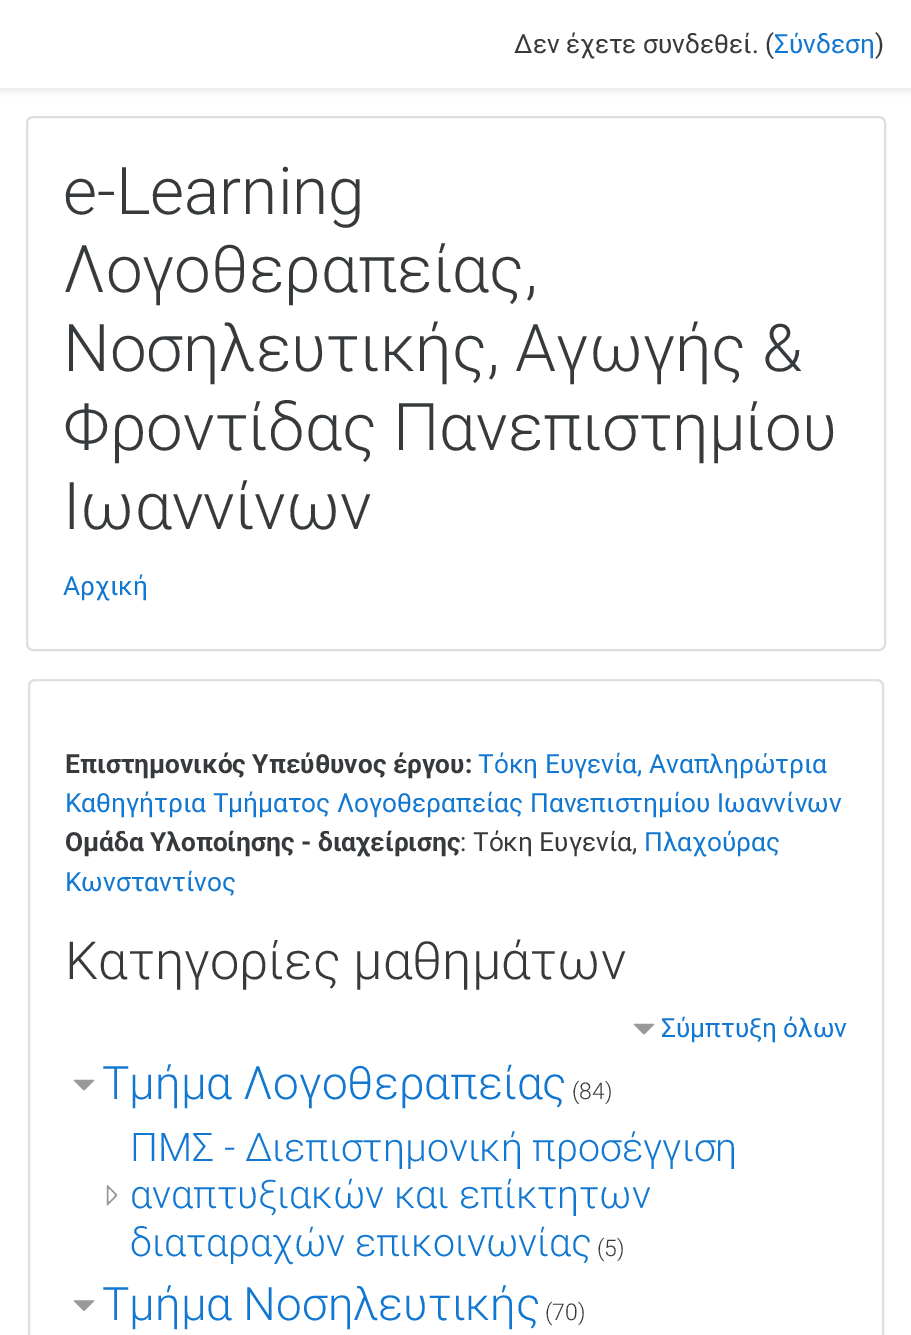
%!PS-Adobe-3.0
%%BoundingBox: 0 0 911 1335
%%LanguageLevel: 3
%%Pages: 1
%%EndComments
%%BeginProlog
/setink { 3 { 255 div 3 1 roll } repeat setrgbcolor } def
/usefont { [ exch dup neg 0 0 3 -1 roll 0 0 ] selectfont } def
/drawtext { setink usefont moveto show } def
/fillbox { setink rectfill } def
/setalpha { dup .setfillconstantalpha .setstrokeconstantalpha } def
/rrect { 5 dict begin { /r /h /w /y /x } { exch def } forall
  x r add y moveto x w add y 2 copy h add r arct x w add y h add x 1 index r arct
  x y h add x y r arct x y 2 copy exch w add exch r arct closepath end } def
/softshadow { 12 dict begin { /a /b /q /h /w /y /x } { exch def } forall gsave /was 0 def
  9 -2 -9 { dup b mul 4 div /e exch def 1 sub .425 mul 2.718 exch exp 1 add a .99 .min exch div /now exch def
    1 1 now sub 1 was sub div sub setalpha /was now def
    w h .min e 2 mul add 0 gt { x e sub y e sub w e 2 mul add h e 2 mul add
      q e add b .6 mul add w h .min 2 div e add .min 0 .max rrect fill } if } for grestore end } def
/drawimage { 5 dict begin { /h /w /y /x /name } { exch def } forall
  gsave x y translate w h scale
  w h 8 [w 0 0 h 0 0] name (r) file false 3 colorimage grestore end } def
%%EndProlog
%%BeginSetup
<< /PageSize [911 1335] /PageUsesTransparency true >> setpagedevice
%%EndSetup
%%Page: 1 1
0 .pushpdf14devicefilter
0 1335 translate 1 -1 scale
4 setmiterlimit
0 0 911 1335 255 255 255 fillbox
0 0 0 setink
0 4 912 87 0 3.5 0.08 softshadow
0 0 911 88 255 255 255 fillbox
(Δεν έχετε συνδεθεί. \() 514 53 /Roboto-Regular 26.25 55 58 60 drawtext
(Σύνδεση) 774 53 /Roboto-Regular 26.25 17 119 209 drawtext
(\)) 875 53 /Roboto-Regular 26.25 55 58 60 drawtext
223 223 223 setink
2 setlinewidth
27 117 858 533 6 rrect stroke
(e-Learning) 63 214 /Roboto-Light 65.6 55 58 60 drawtext
(Λογοθεραπείας,) 63 292 /Roboto-Light 65.6 55 58 60 drawtext
(Νοσηλευτικής, Αγωγής &) 63 371 /Roboto-Light 65.6 55 58 60 drawtext
(Φροντίδας Πανεπιστημίου) 63 450 /Roboto-Light 65.6 55 58 60 drawtext
(Ιωαννίνων) 63 529 /Roboto-Light 65.6 55 58 60 drawtext
(Αρχική) 63 595 /Roboto-Regular 26.25 17 119 209 drawtext
223 223 223 setink
29 680 854 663 6 rrect stroke
(Επιστημονικός Υπεύθυνος έργου:) 65 773 /Roboto-Bold 26.25 55 58 60 drawtext
(Τόκη Ευγενία, Αναπληρώτρια) 478 773 /Roboto-Regular 26.25 17 119 209 drawtext
(Καθηγήτρια Τμήματος Λογοθεραπείας Πανεπιστημίου Ιωαννίνων) 65 812 /Roboto-Regular 26.25 17 119 209 drawtext
(Ομάδα Υλοποίησης - διαχείρισης) 65 851 /Roboto-Bold 26.25 55 58 60 drawtext
(: Τόκη Ευγενία,) 460 851 /Roboto-Regular 26.25 55 58 60 drawtext
(Πλαχούρας) 644 851 /Roboto-Regular 26.25 17 119 209 drawtext
(Κωνσταντίνος) 65 891 /Roboto-Regular 26.25 17 119 209 drawtext
(Κατηγορίες μαθημάτων) 65 979 /Roboto-Light 52.5 55 58 60 drawtext
(assets/img1.rgb) 633 1023 22 12 drawimage
(Σύμπτυξη όλων) 661 1037 /Roboto-Regular 26.25 17 119 209 drawtext
(assets/img1.rgb) 73 1079 22 12 drawimage
(Τμήμα Λογοθεραπείας) 102 1099 /Roboto-Light 46 17 119 209 drawtext
(\(84\)) 572 1099 /Roboto-Light 23 55 58 60 drawtext
(assets/img2.rgb) 106 1185 12 21 drawimage
(ΠΜΣ - Διεπιστημονική προσέγγιση) 130 1161 /Roboto-Light 39.4 17 119 209 drawtext
(αναπτυξιακών και επίκτητων) 130 1208 /Roboto-Light 39.4 17 119 209 drawtext
(διαταραχών επικοινωνίας) 130 1256 /Roboto-Light 39.4 17 119 209 drawtext
(\(5\)) 597 1256 /Roboto-Light 23 55 58 60 drawtext
(assets/img3.rgb) 73 1300 22 11 drawimage
(Τμήμα Νοσηλευτικής) 102 1320 /Roboto-Light 46 17 119 209 drawtext
(\(70\)) 545 1320 /Roboto-Light 23 55 58 60 drawtext
.poppdf14devicefilter showpage
%%EOF
